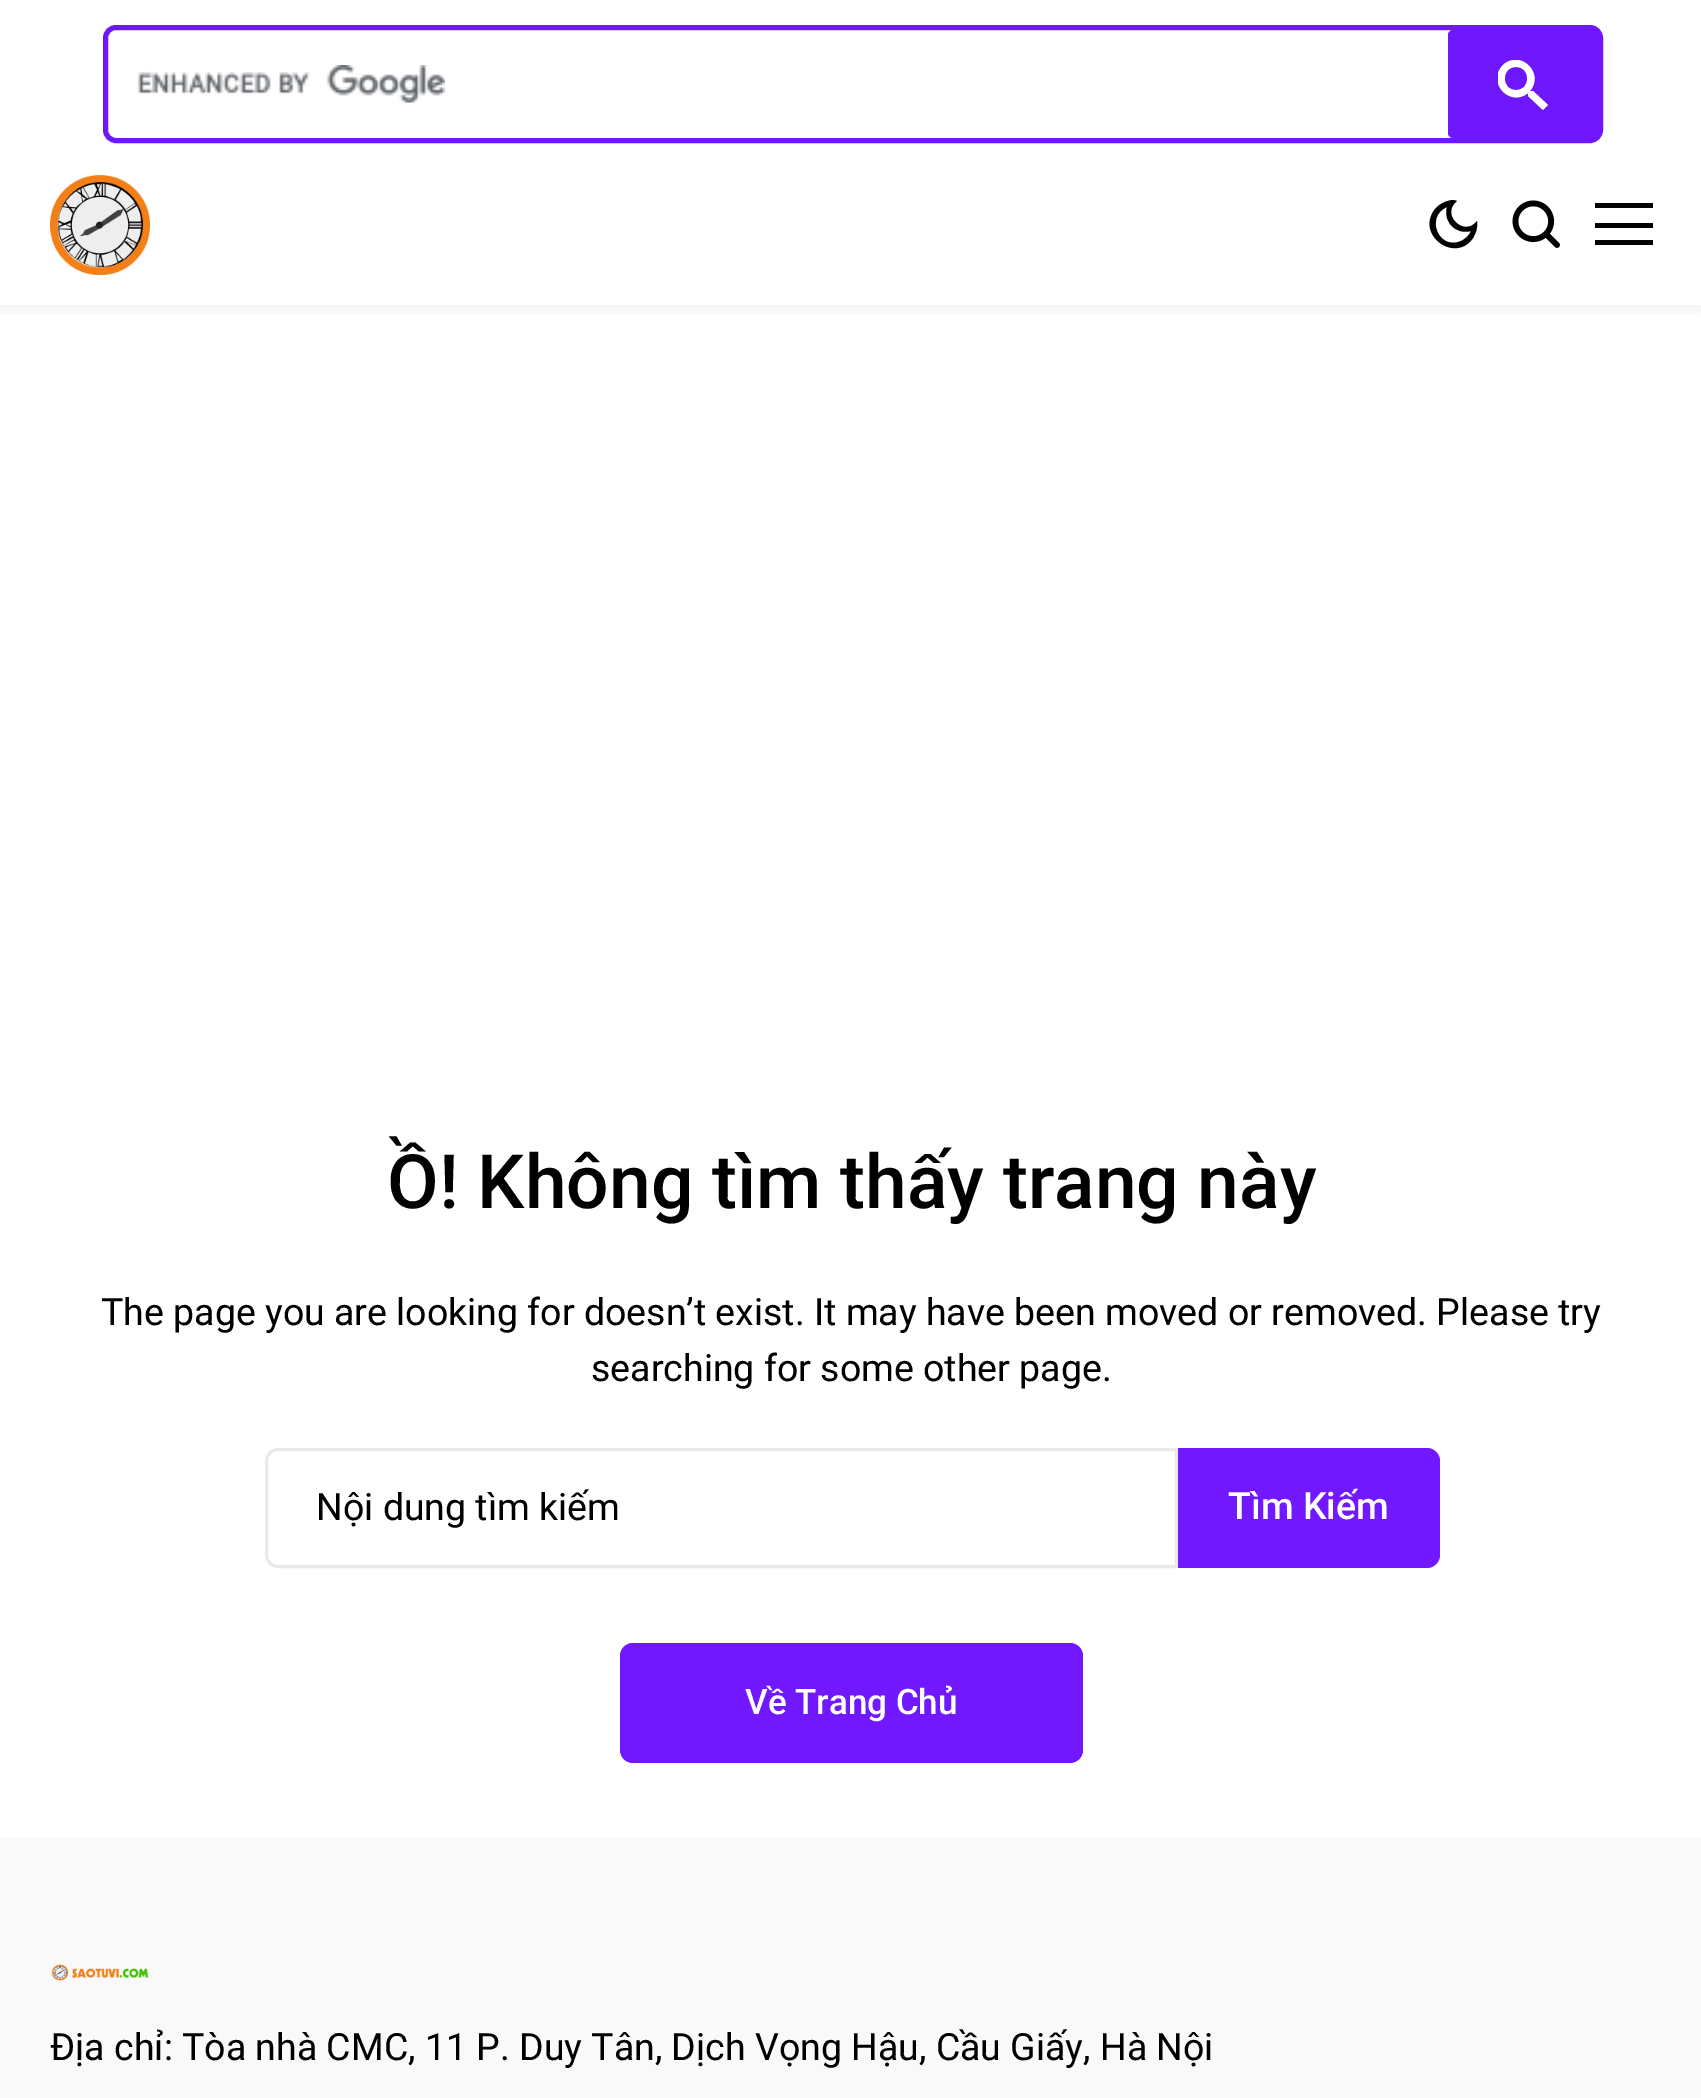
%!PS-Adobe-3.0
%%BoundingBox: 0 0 1701 2098
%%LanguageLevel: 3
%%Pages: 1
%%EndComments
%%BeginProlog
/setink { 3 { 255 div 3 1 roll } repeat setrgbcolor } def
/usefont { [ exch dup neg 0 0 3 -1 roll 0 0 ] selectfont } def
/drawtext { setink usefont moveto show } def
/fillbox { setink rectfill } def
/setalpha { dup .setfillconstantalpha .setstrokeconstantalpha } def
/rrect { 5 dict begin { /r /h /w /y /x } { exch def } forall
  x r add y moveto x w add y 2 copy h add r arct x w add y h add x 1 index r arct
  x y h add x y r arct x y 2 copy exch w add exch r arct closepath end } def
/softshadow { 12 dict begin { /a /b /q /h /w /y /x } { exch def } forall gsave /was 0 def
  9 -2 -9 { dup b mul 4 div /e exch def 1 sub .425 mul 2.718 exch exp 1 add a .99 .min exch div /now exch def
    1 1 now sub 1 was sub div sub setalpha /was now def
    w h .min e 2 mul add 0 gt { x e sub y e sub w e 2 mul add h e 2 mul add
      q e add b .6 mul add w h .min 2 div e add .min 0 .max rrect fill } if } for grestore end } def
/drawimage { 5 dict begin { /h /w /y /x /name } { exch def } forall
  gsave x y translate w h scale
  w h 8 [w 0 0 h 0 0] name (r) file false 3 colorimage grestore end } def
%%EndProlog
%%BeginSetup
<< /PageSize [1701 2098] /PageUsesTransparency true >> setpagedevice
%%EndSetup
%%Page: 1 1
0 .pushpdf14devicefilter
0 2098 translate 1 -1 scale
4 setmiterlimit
0 0 1701 2098 255 255 255 fillbox
gsave
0 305 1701 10 rectclip
0 0 0 setink
0 5 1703 305 0 11 0.06 softshadow
grestore
111 23 251 setink
5 setlinewidth
105.5 27.5 1495 113 10.5 rrect stroke
(assets/img1.rgb) 137 65 308 38 drawimage
1448 30 150 108 5 rrect fill
gsave
1498 60 50 50 rectclip
255 255 255 setink
1516 90 moveto 1531 90 1531 67 1516 67 curveto 1501 67 1501 90 1516 90 curveto closepath 1533 91 moveto 1548 105 lineto 1543 110 lineto 1528 96 lineto 1528 93 lineto 1510 108 1486 82 1503 65 curveto 1520 49 1545 73 1530 91 curveto 1531 91 lineto closepath fill
grestore
(assets/img2.rgb) 50 175 100 100 drawimage
0 0 0 setink
1454 200 moveto 1457 201 lineto 1440 214 1464 238 1477 221 curveto 1478 227 1476 233 1473 238 curveto 1456 263 1418 237 1433 212 curveto 1437 205 1446 200 1454 200 curveto closepath 1447 207 moveto 1425 216 1438 251 1461 241 curveto 1465 239 1469 236 1471 231 curveto 1456 235 1443 222 1447 207 curveto closepath eofill
(assets/img3.rgb) 1512 200 48 48 drawimage
1595 203 58 5 0 0 0 fillbox
1595 223 58 5 0 0 0 fillbox
1595 240 58 5 0 0 0 fillbox
(Ồ! Không tìm thấy trang này) 387 1208 /Roboto-Medium 75 0 0 0 drawtext
(The page you are looking for doesn’t exist. It may have been moved or removed. Please try) 101 1325 /Roboto-Regular 37.5 0 0 0 drawtext
(searching for some other page.) 591 1381 /Roboto-Regular 37.5 0 0 0 drawtext
233 233 233 setink
3 setlinewidth
278 1449.5 moveto 1176.5 1449.5 lineto 1176.5 1566.5 lineto 278 1566.5 lineto 271.5 1566.5 266.5 1561.5 266.5 1555 curveto 266.5 1461 lineto 266.5 1454.5 271.5 1449.5 278 1449.5 curveto closepath stroke
(Nội dung tìm kiếm) 316 1520 /Roboto-Regular 37.5 0 0 0 drawtext
113 24 255 setink
1178 1448 moveto 1427 1448 lineto 1434 1448 1440 1454 1440 1461 curveto 1440 1555 lineto 1440 1562 1434 1568 1427 1568 curveto 1178 1568 lineto closepath fill
(Tìm Kiếm) 1228 1519 /Roboto-Medium 37.5 255 255 255 drawtext
113 24 255 setink
620 1643 463 120 13 rrect fill
(Về Trang Chủ) 745 1714 /Roboto-Medium 35 255 255 255 drawtext
0 1838 1701 260 249 249 250 fillbox
(assets/img4.rgb) 51 1964 98 17 drawimage
(Địa chỉ: Tòa nhà CMC, 11 P. Duy Tân, Dịch Vọng Hậu, Cầu Giấy, Hà Nội) 50 2060 /Roboto-Regular 37.5 0 0 0 drawtext
.poppdf14devicefilter showpage
%%EOF
